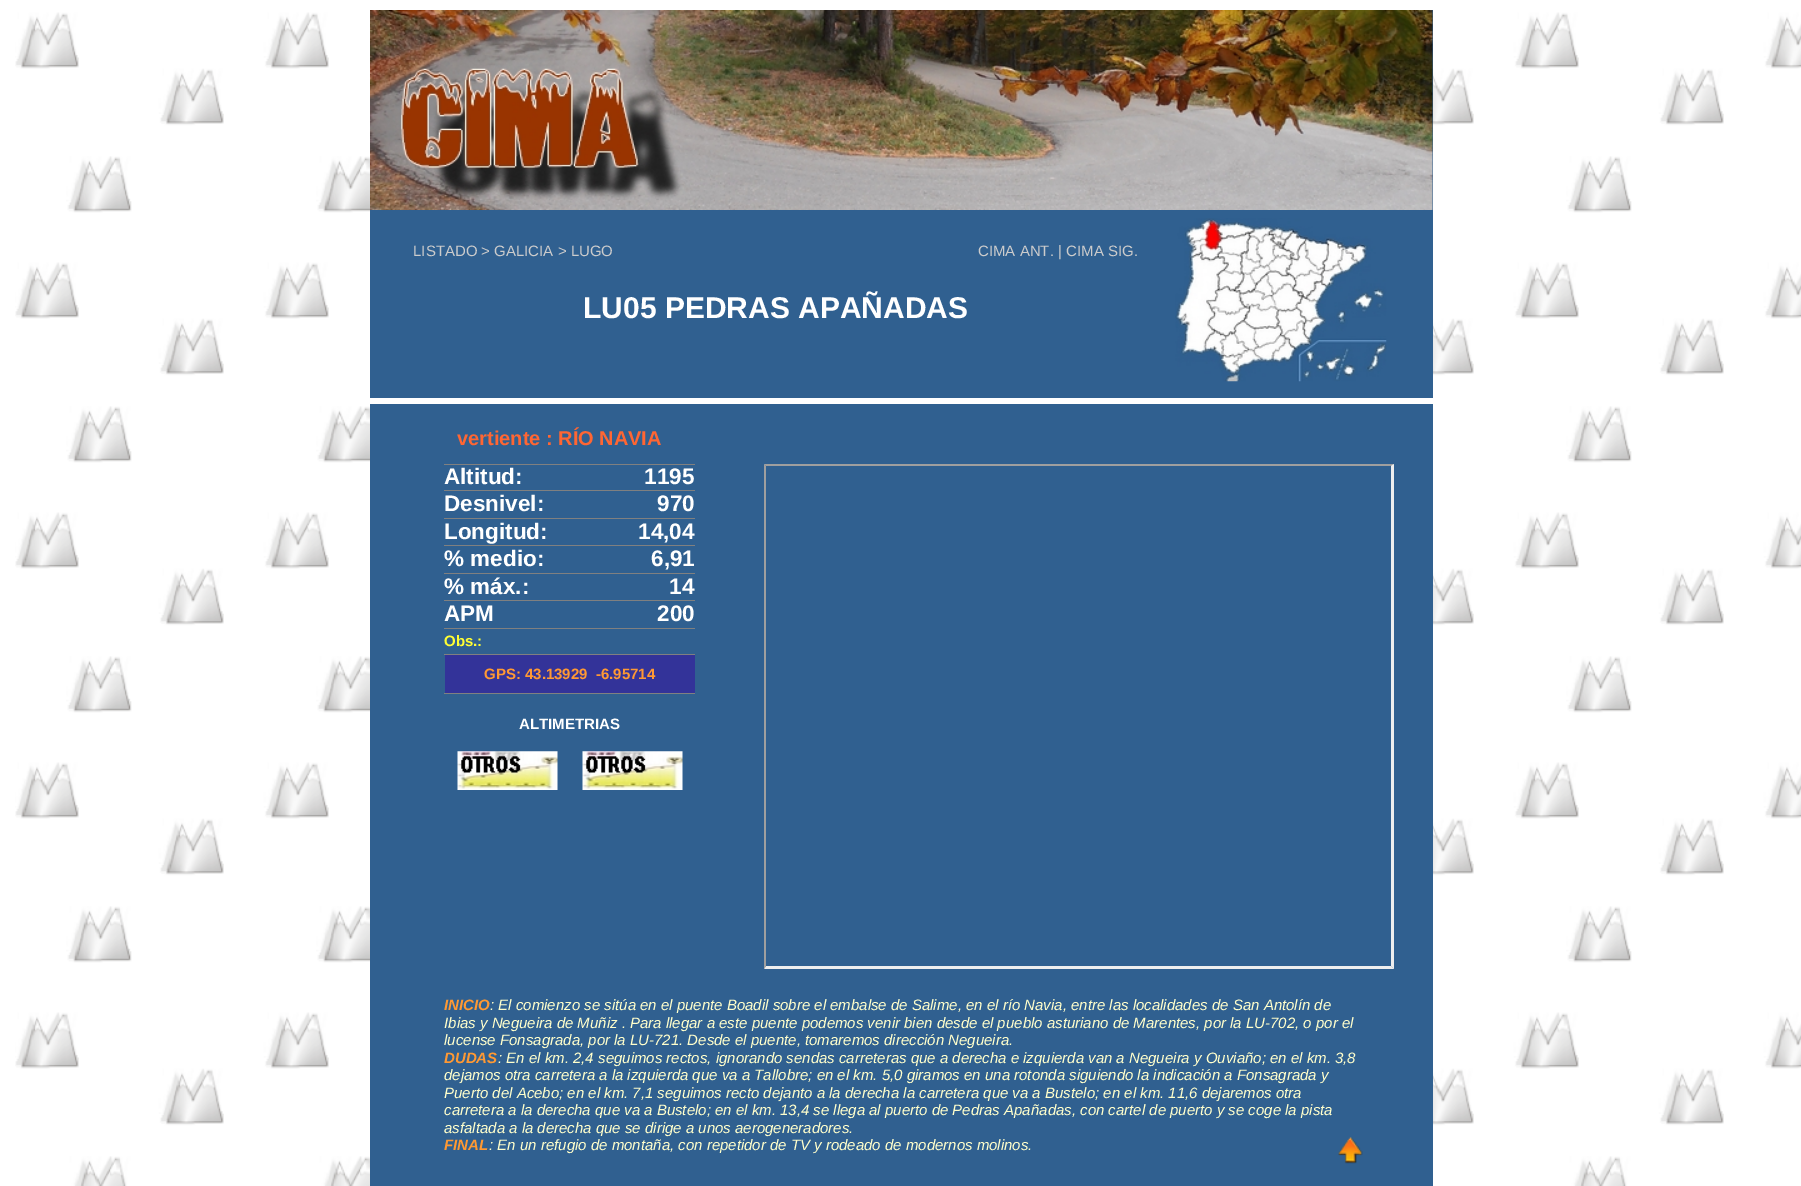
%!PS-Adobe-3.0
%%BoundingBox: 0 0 1801 1186
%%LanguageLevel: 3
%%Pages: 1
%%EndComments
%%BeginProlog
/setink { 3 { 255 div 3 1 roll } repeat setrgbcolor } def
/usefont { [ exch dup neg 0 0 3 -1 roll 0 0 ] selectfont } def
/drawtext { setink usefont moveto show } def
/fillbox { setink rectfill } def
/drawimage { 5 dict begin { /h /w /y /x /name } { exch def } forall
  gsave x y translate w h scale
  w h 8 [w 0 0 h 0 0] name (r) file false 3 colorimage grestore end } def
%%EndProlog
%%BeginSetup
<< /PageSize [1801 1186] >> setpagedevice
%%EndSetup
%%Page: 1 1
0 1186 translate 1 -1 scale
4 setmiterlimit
0 0 1801 1186 255 255 255 fillbox
(assets/img1.rgb) 15 12 1786 1174 drawimage
370 10 1063 1176 48 96 144 fillbox
(assets/img2.rgb) 370 10 1063 200 drawimage
(LISTADO > GALICIA > LUGO) 413 256 /LiberationSans-Regular 15 204 204 204 drawtext
(CIMA ANT. | CIMA SIG.) 978 256 /LiberationSans-Regular 15 204 204 204 drawtext
(LU05 PEDRAS APAÑADAS) 583 318 /LiberationSans-Bold 30 255 255 255 drawtext
(assets/img3.rgb) 1175 218 212 164 drawimage
370 398 1063 6 255 255 255 fillbox
(vertiente : RÍO NAVIA) 457 445 /LiberationSans-Bold 20 255 102 51 drawtext
(Altitud:) 444 484 /LiberationSans-Bold 22.5 255 255 255 drawtext
444 464 251 1 128 128 128 fillbox
(1195) 644 484 /LiberationSans-Bold 22.5 255 255 255 drawtext
(Desnivel:) 444 511 /LiberationSans-Bold 22.5 255 255 255 drawtext
444 490 251 1 128 128 128 fillbox
(970) 657 511 /LiberationSans-Bold 22.5 255 255 255 drawtext
(Longitud:) 444 539 /LiberationSans-Bold 22.5 255 255 255 drawtext
444 518 251 1 128 128 128 fillbox
(14,04) 638 539 /LiberationSans-Bold 22.5 255 255 255 drawtext
(% medio:) 444 566 /LiberationSans-Bold 22.5 255 255 255 drawtext
444 545 251 1 128 128 128 fillbox
(6,91) 651 566 /LiberationSans-Bold 22.5 255 255 255 drawtext
(% máx.:) 444 594 /LiberationSans-Bold 22.5 255 255 255 drawtext
444 573 251 1 128 128 128 fillbox
(14) 669 594 /LiberationSans-Bold 22.5 255 255 255 drawtext
(APM) 444 621 /LiberationSans-Bold 22.5 255 255 255 drawtext
444 600 251 1 128 128 128 fillbox
(200) 657 621 /LiberationSans-Bold 22.5 255 255 255 drawtext
444 628 251 1 128 128 128 fillbox
(Obs.:) 444 646 /LiberationSans-Bold 15 255 255 51 drawtext
445 655 250 38 51 51 153 fillbox
444 654 251 1 128 128 128 fillbox
444 693 251 1 128 128 128 fillbox
(GPS: 43.13929  -6.95714) 484 679 /LiberationSans-Bold 15 255 153 51 drawtext
(ALTIMETRIAS) 519 729 /LiberationSans-Bold 15 255 255 255 drawtext
(assets/img4.rgb) 457 751 101 39 drawimage
(assets/img5.rgb) 582 751 101 39 drawimage
159 159 159 setink
764 464 moveto 1394 464 lineto 1391 466 lineto 766 466 lineto closepath fill
238 238 238 setink
1394 464 moveto 1394 969 lineto 1391 966 lineto 1391 466 lineto closepath fill
1394 969 moveto 764 969 lineto 766 966 lineto 1391 966 lineto closepath fill
159 159 159 setink
764 969 moveto 764 464 lineto 766 466 lineto 766 966 lineto closepath fill
(INICIO) 444 1010 /LiberationSans-BoldItalic 15 255 153 51 drawtext
(: El comienzo se sitúa en el puente Boadil sobre el embalse de Salime, en el río Navia, entre las localidades de San Antolín de) 490 1010 /LiberationSans-Italic 15 255 255 204 drawtext
(Ibias y Negueira de Muñiz . Para llegar a este puente podemos venir bien desde el pueblo asturiano de Marentes, por la LU-702, o por el) 444 1028 /LiberationSans-Italic 15 255 255 204 drawtext
(lucense Fonsagrada, por la LU-721. Desde el puente, tomaremos dirección Negueira.) 444 1045 /LiberationSans-Italic 15 255 255 204 drawtext
(DUDAS) 444 1063 /LiberationSans-BoldItalic 15 255 153 51 drawtext
(: En el km. 2,4 seguimos rectos, ignorando sendas carreteras que a derecha e izquierda van a Negueira y Ouviaño; en el km. 3,8) 498 1063 /LiberationSans-Italic 15 255 255 204 drawtext
(dejamos otra carretera a la izquierda que va a Tallobre; en el km. 5,0 giramos en una rotonda siguiendo la indicación a Fonsagrada y) 444 1080 /LiberationSans-Italic 15 255 255 204 drawtext
(Puerto del Acebo; en el km. 7,1 seguimos recto dejanto a la derecha la carretera que va a Bustelo; en el km. 11,6 dejaremos otra) 444 1098 /LiberationSans-Italic 15 255 255 204 drawtext
(carretera a la derecha que va a Bustelo; en el km. 13,4 se llega al puerto de Pedras Apañadas, con cartel de puerto y se coge la pista) 444 1115 /LiberationSans-Italic 15 255 255 204 drawtext
(asfaltada a la derecha que se dirige a unos aerogeneradores.) 444 1133 /LiberationSans-Italic 15 255 255 204 drawtext
(FINAL) 444 1150 /LiberationSans-BoldItalic 15 255 153 51 drawtext
(: En un refugio de montaña, con repetidor de TV y rodeado de modernos molinos.) 489 1150 /LiberationSans-Italic 15 255 255 204 drawtext
(assets/img6.rgb) 1338 1137 25 27 drawimage
showpage
%%EOF
